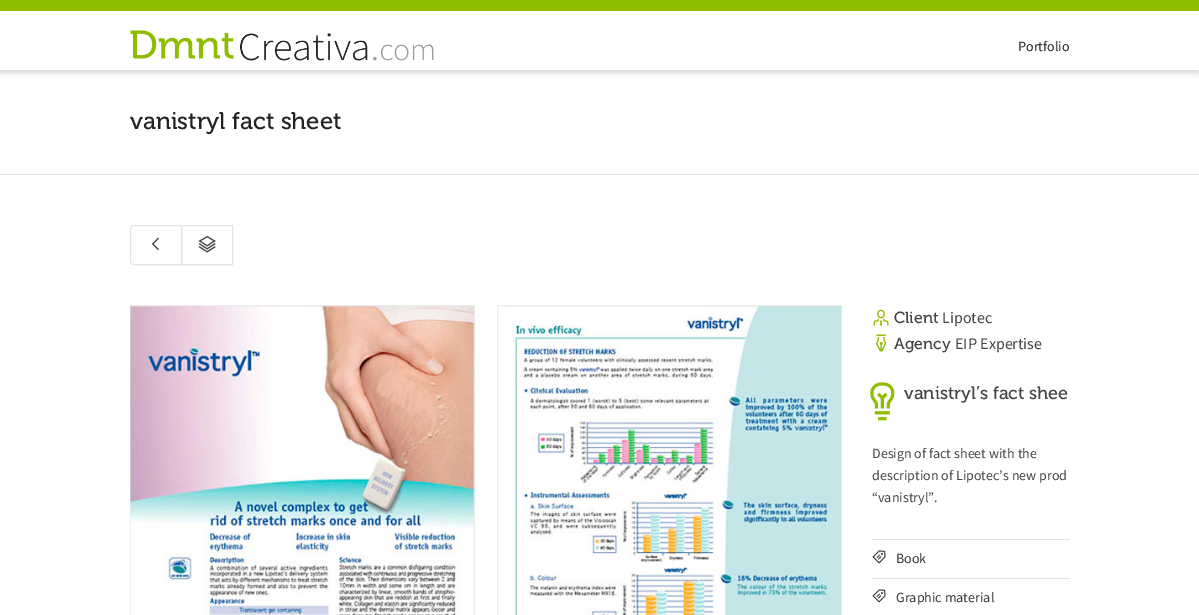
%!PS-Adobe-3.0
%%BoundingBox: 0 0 1199 615
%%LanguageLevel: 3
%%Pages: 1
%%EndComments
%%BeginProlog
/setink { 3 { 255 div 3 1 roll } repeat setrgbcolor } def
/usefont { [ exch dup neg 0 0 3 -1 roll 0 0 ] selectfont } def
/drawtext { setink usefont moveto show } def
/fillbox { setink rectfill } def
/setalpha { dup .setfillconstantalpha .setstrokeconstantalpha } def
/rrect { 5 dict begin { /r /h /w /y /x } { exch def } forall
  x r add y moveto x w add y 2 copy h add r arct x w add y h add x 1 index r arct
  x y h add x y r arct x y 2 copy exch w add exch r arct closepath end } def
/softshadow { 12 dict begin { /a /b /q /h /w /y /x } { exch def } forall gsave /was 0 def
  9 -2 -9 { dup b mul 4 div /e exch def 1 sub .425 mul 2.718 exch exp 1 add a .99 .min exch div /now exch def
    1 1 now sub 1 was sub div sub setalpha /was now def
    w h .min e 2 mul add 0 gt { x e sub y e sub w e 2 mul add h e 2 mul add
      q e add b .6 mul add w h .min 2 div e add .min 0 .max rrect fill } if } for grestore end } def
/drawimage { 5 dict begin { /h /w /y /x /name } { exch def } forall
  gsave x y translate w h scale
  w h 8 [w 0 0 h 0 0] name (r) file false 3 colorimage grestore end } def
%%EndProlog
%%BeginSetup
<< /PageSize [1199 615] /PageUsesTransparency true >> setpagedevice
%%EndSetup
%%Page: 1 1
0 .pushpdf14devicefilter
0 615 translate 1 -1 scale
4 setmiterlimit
0 0 1199 615 255 255 255 fillbox
0 0 0 setink
0 14 1199 59 0 2.5 0.1 softshadow
0 14 1199 59 0 2.5 0.05 softshadow
0 0 1199 11 143 190 0 fillbox
0 11 1199 59 255 255 255 fillbox
(assets/img1.rgb) 130 30 304 31 drawimage
(Portfolio) 1018 51 /SourceSansPro-Regular 14 34 34 34 drawtext
0 174 1199 1 228 228 228 fillbox
(vanistryl fact sheet) 130 129 /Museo-Regular 24 34 34 34 drawtext
228 228 228 setink
134 225.5 moveto 181.5 225.5 lineto 181.5 264.5 lineto 134 264.5 lineto 132 264.5 130.5 263 130.5 261 curveto 130.5 229 lineto 130.5 227 132 225.5 134 225.5 curveto closepath stroke
(assets/img2.rgb) 151 237 8 14 drawimage
181.5 225.5 51 39 rectstroke
(assets/img3.rgb) 198 235 18 18 drawimage
(assets/img4.rgb) 130 305 712 310 drawimage
(assets/img5.rgb) 873 309 16 17 drawimage
(Client) 894 323 /Museo-Regular 16 68 68 68 drawtext
(Lipotec) 942 323 /SourceSansPro-Regular 16 68 68 68 drawtext
(assets/img6.rgb) 876 334 11 18 drawimage
(Agency) 894 349 /Museo-Regular 16 68 68 68 drawtext
(EIP Expertise) 955 349 /SourceSansPro-Regular 16 68 68 68 drawtext
(assets/img7.rgb) 870 382 25 39 drawimage
(vanistryl’s fact shee) 904 399 /Museo-Regular 18 68 68 68 drawtext
(Design of fact sheet with the) 872 458 /SourceSansPro-Regular 14 68 68 68 drawtext
(description of Lipotec’s new prod) 872 480 /SourceSansPro-Regular 14 68 68 68 drawtext
(“vanistryl”.) 872 502 /SourceSansPro-Regular 14 68 68 68 drawtext
872 539 198 1 228 228 228 fillbox
872 578 198 1 228 228 228 fillbox
(assets/img8.rgb) 872 550 14 14 drawimage
(Book) 896 563 /SourceSansPro-Regular 14 51 51 51 drawtext
(assets/img8.rgb) 872 589 14 14 drawimage
(Graphic material) 896 602 /SourceSansPro-Regular 14 51 51 51 drawtext
.poppdf14devicefilter showpage
%%EOF
